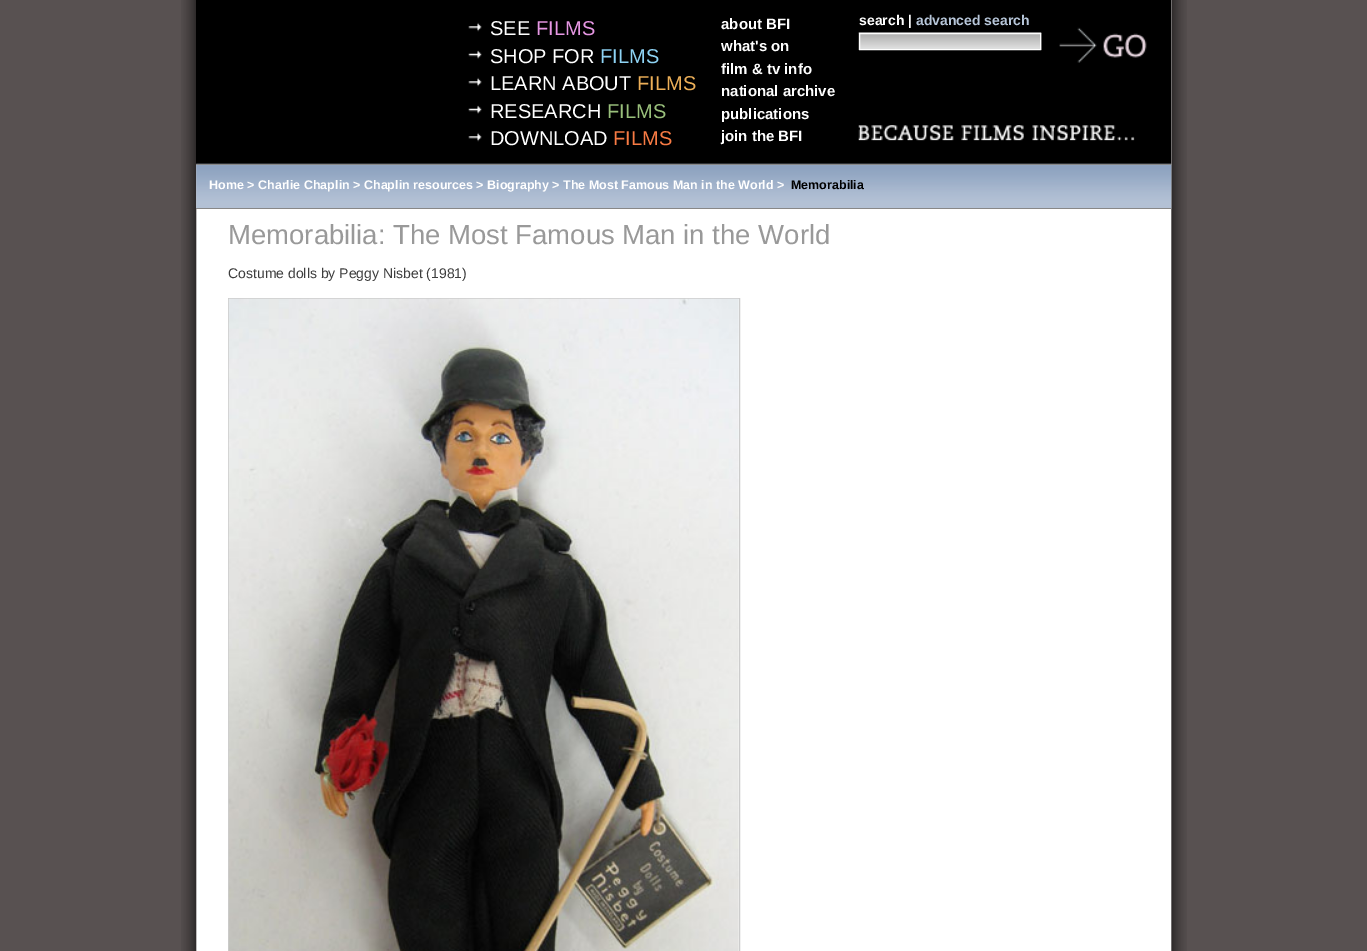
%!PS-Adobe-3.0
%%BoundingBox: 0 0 1367 951
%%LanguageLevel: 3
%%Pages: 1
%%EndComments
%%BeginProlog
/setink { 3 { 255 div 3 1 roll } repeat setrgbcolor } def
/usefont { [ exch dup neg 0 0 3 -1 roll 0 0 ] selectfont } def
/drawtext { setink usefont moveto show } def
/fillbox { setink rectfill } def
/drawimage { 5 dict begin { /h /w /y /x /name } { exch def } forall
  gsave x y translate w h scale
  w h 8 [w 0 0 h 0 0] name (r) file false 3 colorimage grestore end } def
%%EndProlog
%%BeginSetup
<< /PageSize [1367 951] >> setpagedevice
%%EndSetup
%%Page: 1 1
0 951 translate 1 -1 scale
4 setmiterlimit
0 0 1367 951 88 81 81 fillbox
(assets/img1.rgb) 181 0 1006 951 drawimage
196 0 975 164 0 0 0 fillbox
(assets/img2.rgb) 468 22 14 10 drawimage
(SEE) 490 35 /LiberationSans-Regular 20 255 255 255 drawtext
(FILMS) 536 35 /LiberationSans-Regular 20 230 151 227 drawtext
(assets/img3.rgb) 468 50 14 9 drawimage
(SHOP FOR) 490 63 /LiberationSans-Regular 20 255 255 255 drawtext
(FILMS) 600 63 /LiberationSans-Regular 20 142 211 244 drawtext
(assets/img2.rgb) 468 77 14 10 drawimage
(LEARN ABOUT) 490 90 /LiberationSans-Regular 20 255 255 255 drawtext
(FILMS) 637 90 /LiberationSans-Regular 20 236 175 88 drawtext
(assets/img3.rgb) 468 105 14 9 drawimage
(RESEARCH) 490 118 /LiberationSans-Regular 20 255 255 255 drawtext
(FILMS) 607 118 /LiberationSans-Regular 20 153 191 123 drawtext
(assets/img2.rgb) 468 132 14 10 drawimage
(DOWNLOAD) 490 145 /LiberationSans-Regular 20 255 255 255 drawtext
(FILMS) 613 145 /LiberationSans-Regular 20 248 123 68 drawtext
(about BFI) 721 29 /LiberationSans-Bold 15 255 255 255 drawtext
(what's on) 721 51 /LiberationSans-Bold 15 255 255 255 drawtext
(film & tv info) 721 74 /LiberationSans-Bold 15 255 255 255 drawtext
(national archive) 721 96 /LiberationSans-Bold 15 255 255 255 drawtext
(publications) 721 119 /LiberationSans-Bold 15 255 255 255 drawtext
(join the BFI) 721 141 /LiberationSans-Bold 15 255 255 255 drawtext
(search |) 859 25 /LiberationSans-Bold 14 255 255 255 drawtext
(advanced search) 916 25 /LiberationSans-Bold 14 183 198 217 drawtext
(assets/img4.rgb) 858 32 184 18 drawimage
255 255 255 setink
859.5 33.5 181 16 rectstroke
(assets/img5.rgb) 1059 27 88 36 drawimage
(assets/img6.rgb) 858 125 277 16 drawimage
(assets/img7.rgb) 196 163 976 46 drawimage
196 164 975 1 136 136 136 fillbox
196 208 975 1 136 136 136 fillbox
(Home > Charlie Chaplin > Chaplin resources > Biography > The Most Famous Man in the World >) 209 189 /LiberationSans-Bold 12.5 255 255 255 drawtext
(Memorabilia) 791 189 /LiberationSans-Bold 12.5 0 0 0 drawtext
(Memorabilia: The Most Famous Man in the World) 228 244 /LiberationSans-Regular 27.5 153 153 153 drawtext
(Costume dolls by Peggy Nisbet \(1981\)) 228 278 /LiberationSans-Regular 14 61 61 61 drawtext
204 204 204 setink
228.5 298.5 511 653 rectstroke
(assets/img8.rgb) 228 298 511 653 drawimage
showpage
%%EOF
